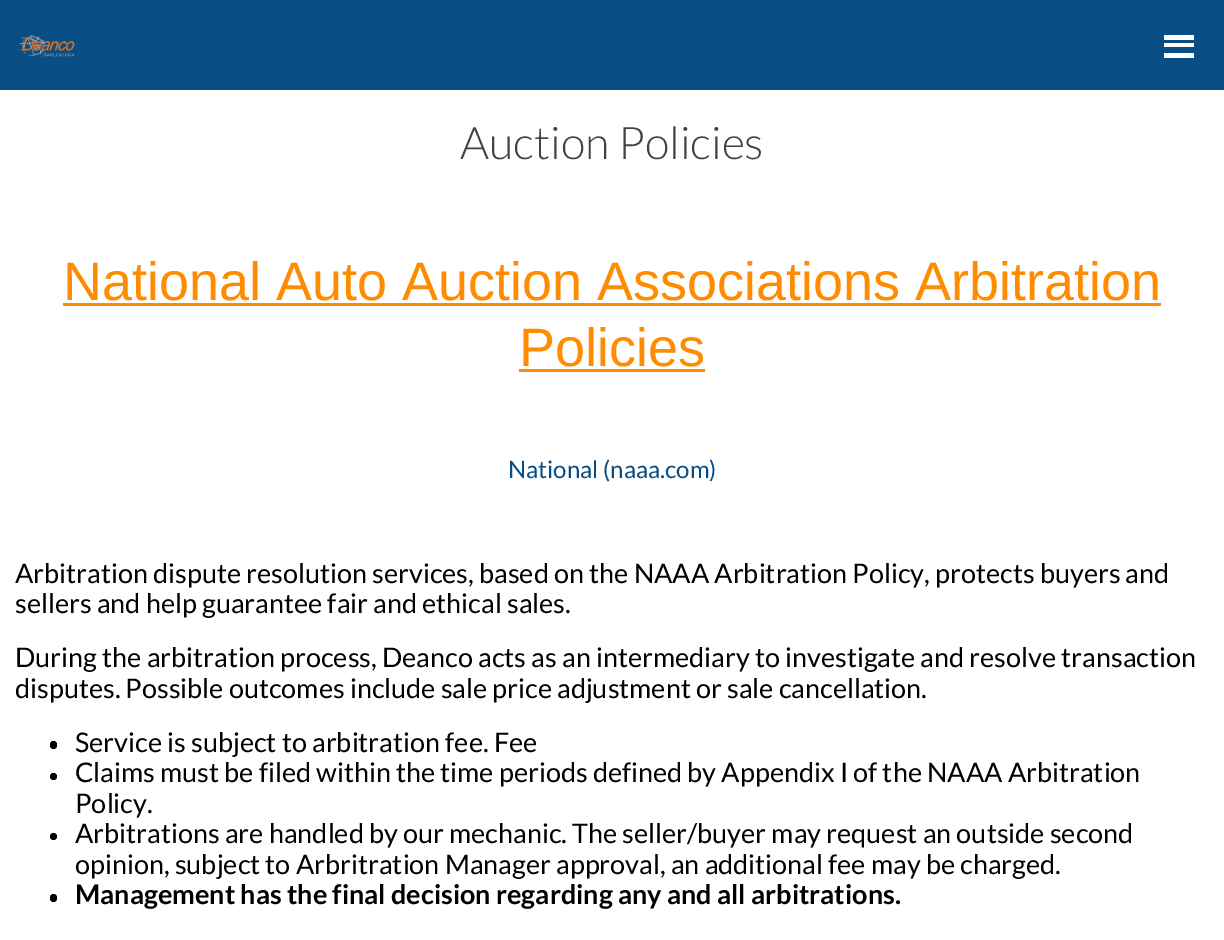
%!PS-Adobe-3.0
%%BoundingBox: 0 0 1224 940
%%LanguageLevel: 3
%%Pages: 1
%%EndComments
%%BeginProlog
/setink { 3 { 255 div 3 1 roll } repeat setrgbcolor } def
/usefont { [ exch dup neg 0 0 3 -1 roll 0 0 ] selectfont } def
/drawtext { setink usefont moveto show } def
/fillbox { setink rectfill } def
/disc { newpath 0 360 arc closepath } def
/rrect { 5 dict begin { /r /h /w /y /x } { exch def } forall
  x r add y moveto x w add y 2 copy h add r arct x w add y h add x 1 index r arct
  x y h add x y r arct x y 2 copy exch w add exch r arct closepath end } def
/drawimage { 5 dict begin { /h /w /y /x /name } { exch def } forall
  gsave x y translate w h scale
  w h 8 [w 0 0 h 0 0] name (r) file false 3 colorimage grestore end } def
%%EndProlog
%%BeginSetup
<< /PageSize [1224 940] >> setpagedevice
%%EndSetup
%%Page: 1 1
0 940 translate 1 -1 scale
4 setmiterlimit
0 0 1224 940 255 255 255 fillbox
0 0 1224 90 8 77 132 fillbox
255 255 255 setink
1165.5 43 moveto 1194 43 lineto 1194 47 lineto 1164 47 lineto 1164 43 lineto closepath fill
1164 35 30 5 255 255 255 fillbox
1164 53 30 5 255 255 255 fillbox
(assets/img1.rgb) 18 34 57 23 drawimage
(Auction Policies) 460 159 /Lato-Light 45 66 66 66 drawtext
(National Auto Auction Associations Arbitration) 63 300 /LiberationSans-Regular 54 255 140 0 drawtext
63 303 1098 3 255 140 0 fillbox
(Policies) 519 366 /LiberationSans-Regular 54 255 140 0 drawtext
519 369 186 3 255 140 0 fillbox
(National \(naaa.com\)) 508 478 /Lato-Regular 24 8 77 132 drawtext
(Arbitration dispute resolution services, based on the NAAA Arbitration Policy, protects buyers and) 15 583 /Lato-Regular 27 0 0 0 drawtext
(sellers and help guarantee fair and ethical sales.) 15 613 /Lato-Regular 27 0 0 0 drawtext
(During the arbitration process, Deanco acts as an intermediary to investigate and resolve transaction) 15 667 /Lato-Regular 27 0 0 0 drawtext
(disputes. Possible outcomes include sale price adjustment or sale cancellation.) 15 698 /Lato-Regular 27 0 0 0 drawtext
50 741 7 8 3.5 rrect fill
(Service is subject to arbitration fee. Fee) 75 752 /Lato-Regular 27 0 0 0 drawtext
53.5 776.5 3.5 disc fill
(Claims must be filed within the time periods defined by Appendix I of the NAAA Arbitration) 75 782 /Lato-Regular 27 0 0 0 drawtext
(Policy.) 75 813 /Lato-Regular 27 0 0 0 drawtext
53.5 836.5 3.5 disc fill
(Arbitrations are handled by our mechanic. The seller/buyer may request an outside second) 75 843 /Lato-Regular 27 0 0 0 drawtext
(opinion, subject to Arbritration Manager approval, an additional fee may be charged.) 75 874 /Lato-Regular 27 0 0 0 drawtext
50 894 7 8 3.5 rrect fill
(Management has the final decision regarding any and all arbitrations.) 75 904 /Lato-Bold 27 0 0 0 drawtext
showpage
%%EOF
